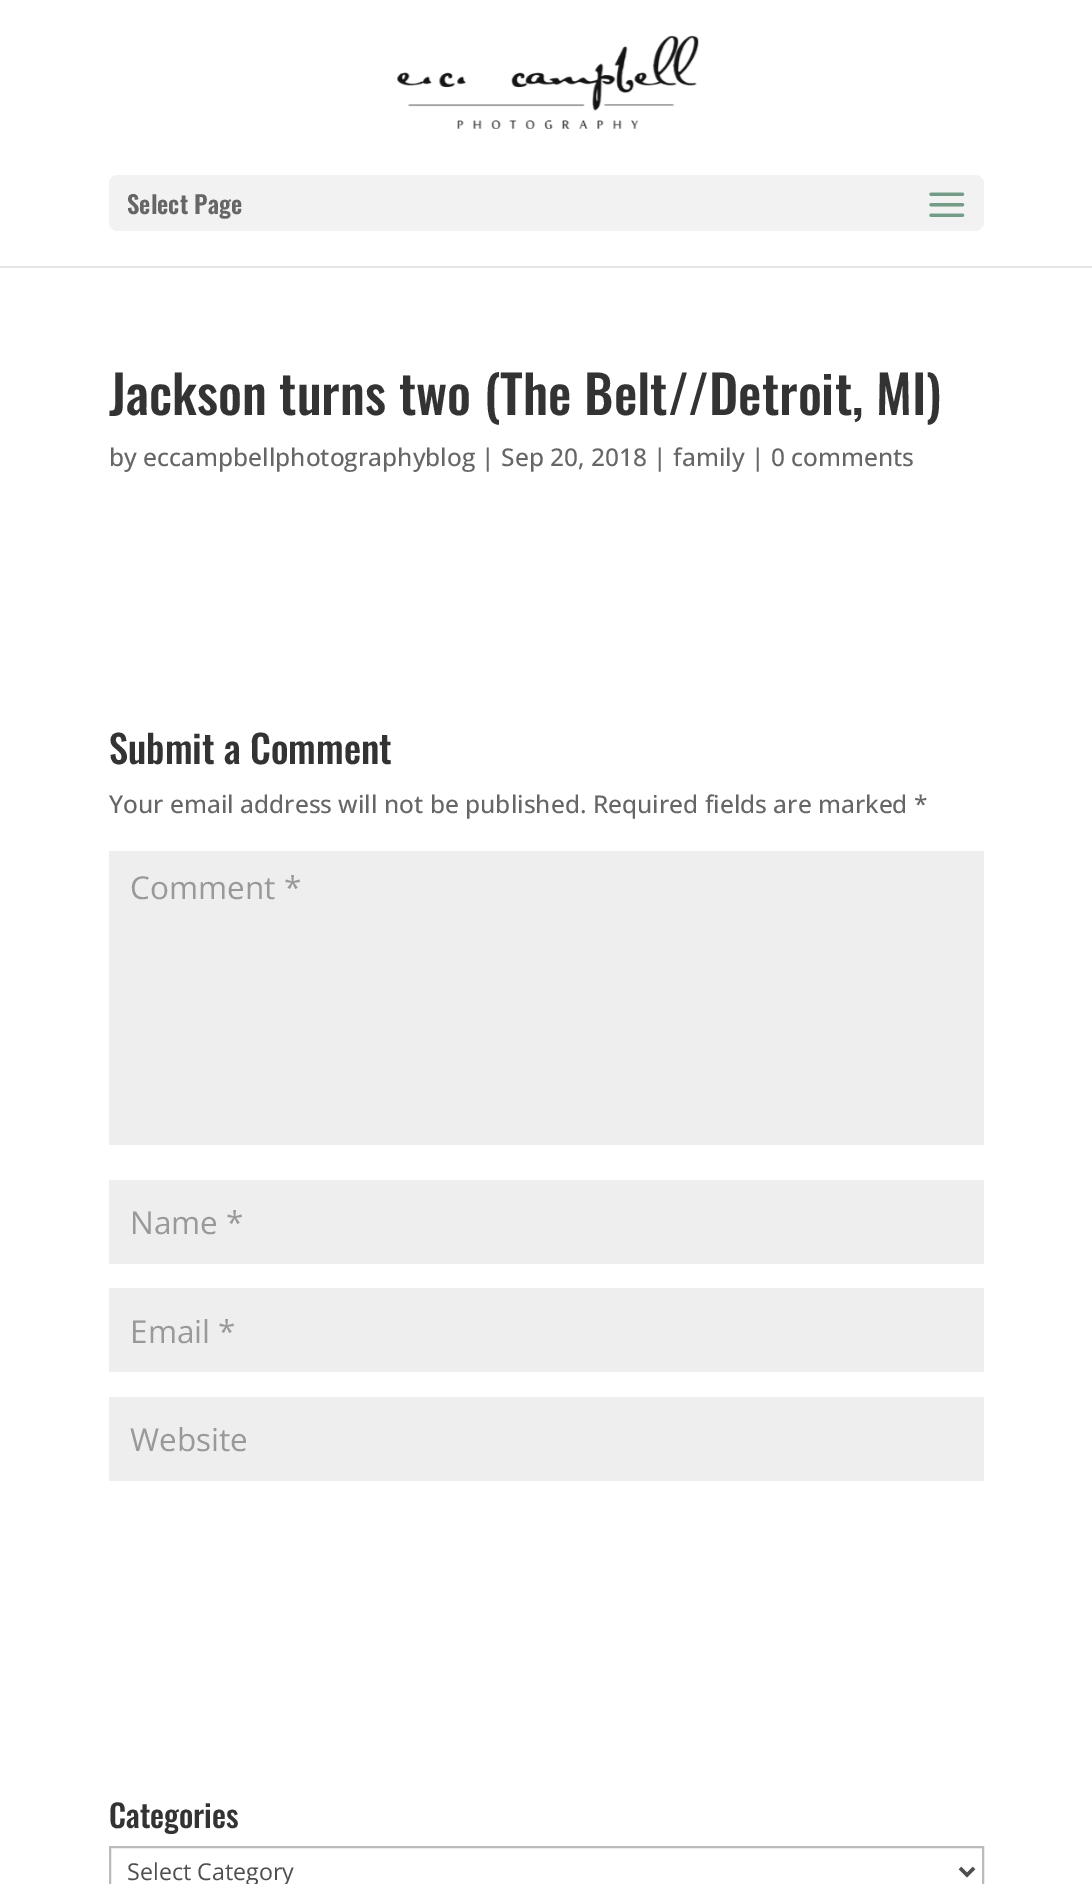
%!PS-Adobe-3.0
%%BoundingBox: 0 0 1092 1884
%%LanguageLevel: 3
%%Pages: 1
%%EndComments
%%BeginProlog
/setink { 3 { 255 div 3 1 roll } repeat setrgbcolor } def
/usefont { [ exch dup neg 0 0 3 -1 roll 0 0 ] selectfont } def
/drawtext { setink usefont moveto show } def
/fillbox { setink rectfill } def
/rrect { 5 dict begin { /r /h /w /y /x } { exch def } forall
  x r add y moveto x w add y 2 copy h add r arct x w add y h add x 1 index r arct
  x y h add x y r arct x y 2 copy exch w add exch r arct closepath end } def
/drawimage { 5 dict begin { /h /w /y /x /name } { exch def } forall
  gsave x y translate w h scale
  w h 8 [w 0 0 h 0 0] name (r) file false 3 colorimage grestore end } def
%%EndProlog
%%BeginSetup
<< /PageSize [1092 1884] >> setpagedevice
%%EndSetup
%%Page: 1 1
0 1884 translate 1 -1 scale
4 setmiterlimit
0 0 1092 1884 255 255 255 fillbox
0 266 1092 2 230 230 230 fillbox
(assets/img1.rgb) 397 35 302 94 drawimage
242 242 242 setink
109 175 875 56 9 rrect fill
(Select Page) 127 214 /Oswald-SemiBold 24.5 102 102 102 drawtext
(assets/img2.rgb) 929 192 36 25 drawimage
(Jackson turns two \(The Belt//Detroit, MI\)) 109 415 /Oswald-Medium 52.5 51 51 51 drawtext
(by eccampbellphotographyblog | Sep 20, 2018 | family | 0 comments) 109 466 /OpenSans-Medium 24.5 102 102 102 drawtext
(Submit a Comment) 109 764 /Oswald-Medium 38.5 51 51 51 drawtext
(Your email address will not be published. Required fields are marked *) 109 813 /OpenSans-Medium 24.5 102 102 102 drawtext
109 851 875 294 238 238 238 fillbox
(Comment *) 130 899 /OpenSans-Regular 31.5 153 153 153 drawtext
109 1180 875 84 238 238 238 fillbox
(Name *) 130 1234 /OpenSans-Regular 31.5 153 153 153 drawtext
109 1288 875 84 238 238 238 fillbox
(Email *) 130 1343 /OpenSans-Regular 31.5 153 153 153 drawtext
109 1397 875 84 238 238 238 fillbox
(Website) 130 1451 /OpenSans-Regular 31.5 153 153 153 drawtext
(Categories) 109 1828 /Oswald-Medium 31.5 51 51 51 drawtext
187 187 187 setink
2 setlinewidth
110 1847 873 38 rectstroke
78 78 78 setink
3.5 setlinewidth
960 1868 moveto 967 1875 lineto 974 1868 lineto stroke
(Select Category) 127 1880 /OpenSans-Regular 23.25 78 78 78 drawtext
showpage
%%EOF
